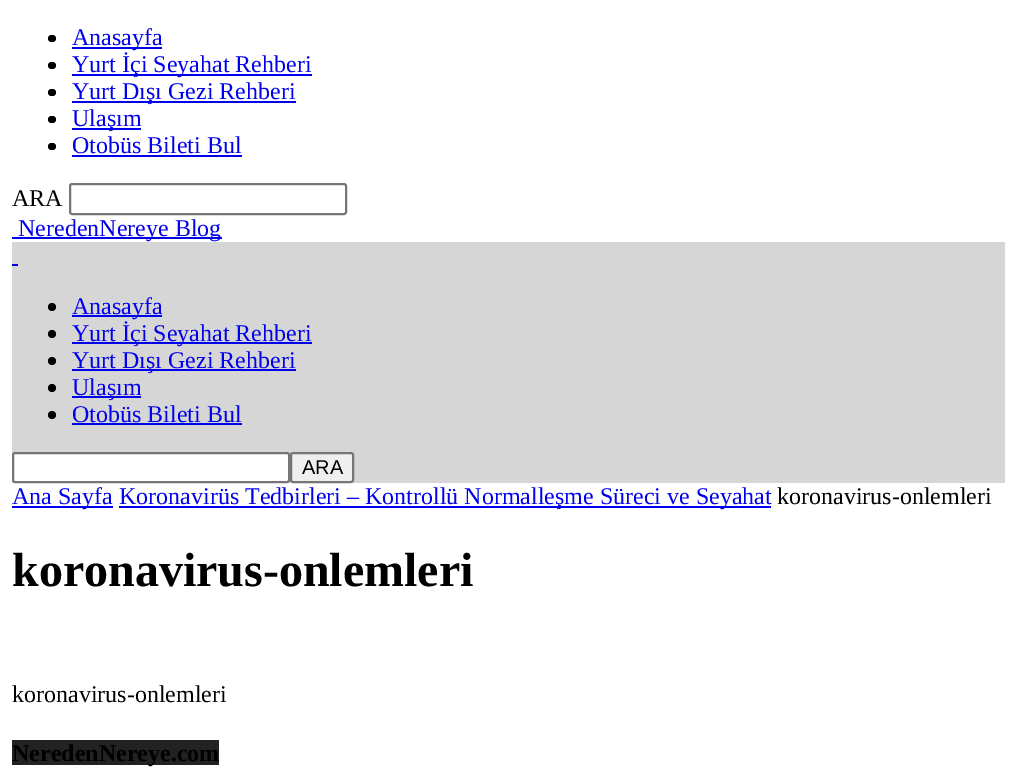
%!PS-Adobe-3.0
%%BoundingBox: 0 0 1016 781
%%LanguageLevel: 3
%%Pages: 1
%%EndComments
%%BeginProlog
/setink { 3 { 255 div 3 1 roll } repeat setrgbcolor } def
/usefont { [ exch dup neg 0 0 3 -1 roll 0 0 ] selectfont } def
/drawtext { setink usefont moveto show } def
/fillbox { setink rectfill } def
/disc { newpath 0 360 arc closepath } def
/rrect { 5 dict begin { /r /h /w /y /x } { exch def } forall
  x r add y moveto x w add y 2 copy h add r arct x w add y h add x 1 index r arct
  x y h add x y r arct x y 2 copy exch w add exch r arct closepath end } def
%%EndProlog
%%BeginSetup
<< /PageSize [1016 781] >> setpagedevice
%%EndSetup
%%Page: 1 1
0 781 translate 1 -1 scale
4 setmiterlimit
0 0 1016 781 255 255 255 fillbox
0 0 0 setink
48 35 8 7 3.5 rrect fill
72 47 90 2 0 0 238 fillbox
(Anasayfa) 72 45 /LiberationSerif-Regular 24 0 0 238 drawtext
0 0 0 setink
48 62 8 7 3.5 rrect fill
72 74 240 2 0 0 238 fillbox
(Yurt İçi Seyahat Rehberi) 72 72 /LiberationSerif-Regular 24 0 0 238 drawtext
0 0 0 setink
48 89 8 7 3.5 rrect fill
72 101 224 2 0 0 238 fillbox
(Yurt Dışı Gezi Rehberi) 72 99 /LiberationSerif-Regular 24 0 0 238 drawtext
0 0 0 setink
48 116 8 7 3.5 rrect fill
72 128 69 2 0 0 238 fillbox
(Ulaşım) 72 126 /LiberationSerif-Regular 24 0 0 238 drawtext
0 0 0 setink
48 143 8 7 3.5 rrect fill
(Otobüs Bileti Bul) 72 153 /LiberationSerif-Regular 24 0 0 238 drawtext
72 155 170 2 0 0 238 fillbox
(ARA) 12 206 /LiberationSerif-Regular 24 0 0 0 drawtext
118 118 118 setink
2 setlinewidth
70 184 276 30 2 rrect stroke
12 237 210 2 0 0 238 fillbox
(NeredenNereye Blog) 18 236 /LiberationSerif-Regular 24 0 0 238 drawtext
12 242 993 241 214 214 214 fillbox
12 264 6 2 0 0 238 fillbox
0 0 0 setink
52 307 4 disc fill
72 315 90 2 0 0 238 fillbox
(Anasayfa) 72 314 /LiberationSerif-Regular 24 0 0 238 drawtext
0 0 0 setink
52 334 4 disc fill
72 342 240 2 0 0 238 fillbox
(Yurt İçi Seyahat Rehberi) 72 341 /LiberationSerif-Regular 24 0 0 238 drawtext
0 0 0 setink
52 361 4 disc fill
72 369 224 2 0 0 238 fillbox
(Yurt Dışı Gezi Rehberi) 72 368 /LiberationSerif-Regular 24 0 0 238 drawtext
0 0 0 setink
52 388 4 disc fill
72 396 69 2 0 0 238 fillbox
(Ulaşım) 72 395 /LiberationSerif-Regular 24 0 0 238 drawtext
0 0 0 setink
52 415 4 disc fill
(Otobüs Bileti Bul) 72 422 /LiberationSerif-Regular 24 0 0 238 drawtext
72 423 170 2 0 0 238 fillbox
255 255 255 setink
13 453 276 29 2 rrect gsave fill grestore
118 118 118 setink
stroke
239 239 239 setink
291 453 62 29 2 rrect gsave fill grestore
118 118 118 setink
stroke
(ARA) 302 474 /LiberationSans-Regular 20 0 0 0 drawtext
12 506 101 2 0 0 238 fillbox
(Ana Sayfa) 12 504 /LiberationSerif-Regular 24 0 0 238 drawtext
119 506 652 2 0 0 238 fillbox
(Koronavirüs Tedbirleri – Kontrollü Normalleşme Süreci ve Seyahat) 119 504 /LiberationSerif-Regular 24 0 0 238 drawtext
(koronavirus-onlemleri) 777 504 /LiberationSerif-Regular 24 0 0 0 drawtext
(koronavirus-onlemleri) 12 586 /LiberationSerif-Bold 48 0 0 0 drawtext
(koronavirus-onlemleri) 12 702 /LiberationSerif-Regular 24 0 0 0 drawtext
12 740 207 25 34 34 34 fillbox
(NeredenNereye.com) 12 761 /LiberationSerif-Bold 24 0 0 0 drawtext
showpage
%%EOF
